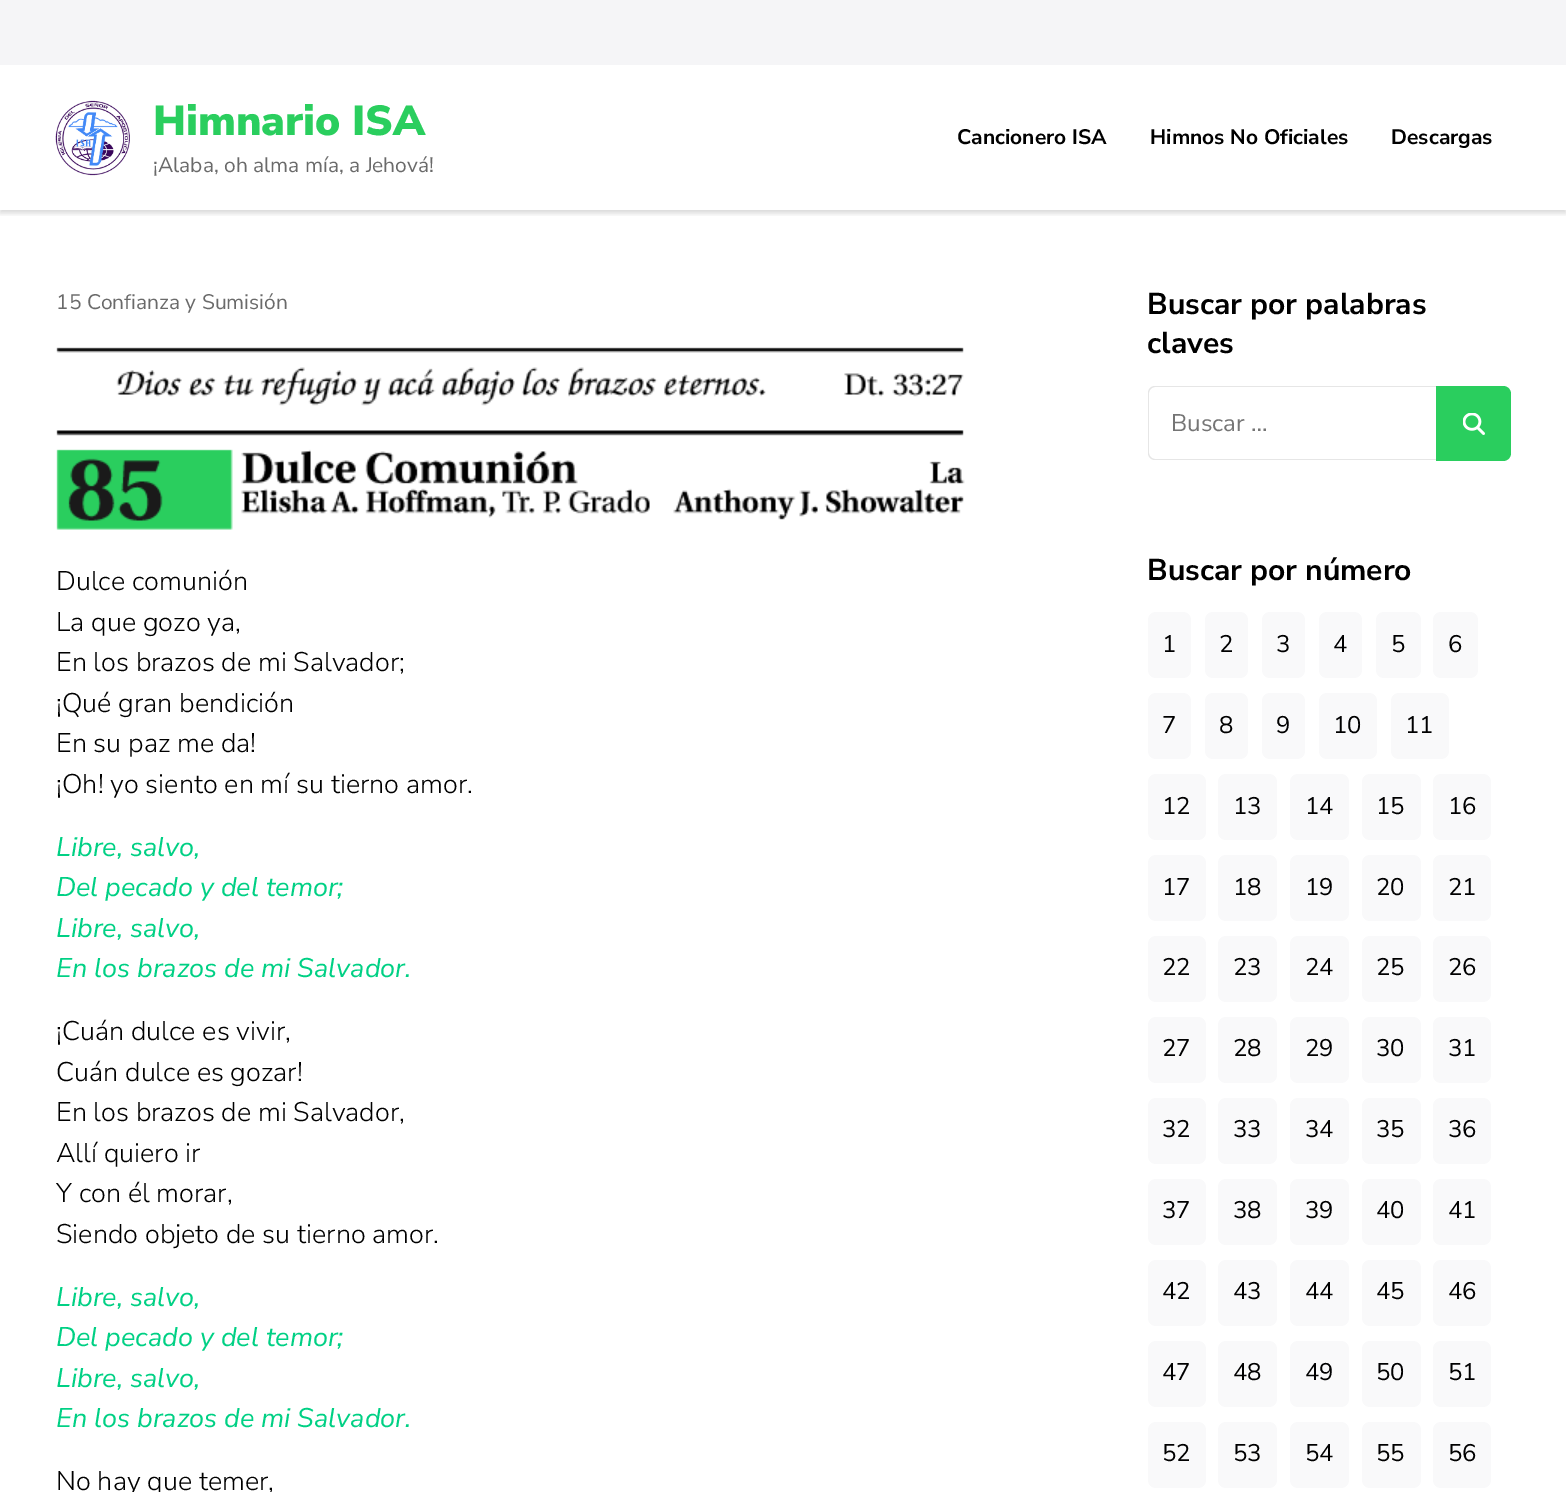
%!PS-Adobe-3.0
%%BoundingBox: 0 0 1566 1492
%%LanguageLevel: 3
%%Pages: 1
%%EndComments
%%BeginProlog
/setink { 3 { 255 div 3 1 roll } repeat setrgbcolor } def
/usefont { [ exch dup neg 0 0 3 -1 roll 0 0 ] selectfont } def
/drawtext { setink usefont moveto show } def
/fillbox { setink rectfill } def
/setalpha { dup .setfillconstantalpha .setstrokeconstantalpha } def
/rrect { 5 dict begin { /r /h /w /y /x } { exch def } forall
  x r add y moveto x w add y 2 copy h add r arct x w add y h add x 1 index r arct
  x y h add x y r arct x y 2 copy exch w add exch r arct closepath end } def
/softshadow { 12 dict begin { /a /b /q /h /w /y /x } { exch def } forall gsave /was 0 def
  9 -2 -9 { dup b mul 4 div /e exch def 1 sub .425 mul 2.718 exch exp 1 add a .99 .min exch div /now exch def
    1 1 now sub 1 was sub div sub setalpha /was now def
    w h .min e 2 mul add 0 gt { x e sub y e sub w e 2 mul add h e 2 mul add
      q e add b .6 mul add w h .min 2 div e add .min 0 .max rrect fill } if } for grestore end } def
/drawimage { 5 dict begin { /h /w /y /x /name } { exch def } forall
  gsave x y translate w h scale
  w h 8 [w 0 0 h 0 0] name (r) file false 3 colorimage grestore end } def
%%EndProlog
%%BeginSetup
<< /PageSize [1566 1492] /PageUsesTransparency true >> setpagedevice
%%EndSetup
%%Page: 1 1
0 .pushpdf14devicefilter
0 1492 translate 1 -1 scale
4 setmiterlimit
0 0 1566 1492 255 255 255 fillbox
gsave
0 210 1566 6 rectclip
0 0 0 setink
0 3 1566 210 0 3 0.16 softshadow
grestore
0 0 1566 65 245 245 247 fillbox
(assets/img1.rgb) 55 100 75 76 drawimage
(Himnario ISA) 153 135 /NunitoSans-Black 42 42 206 94 drawtext
(¡Alaba, oh alma mía, a Jehová!) 153 172 /NunitoSans-Regular 21 106 106 106 drawtext
(Cancionero ISA) 957 144 /NunitoSans-Bold 21 0 0 0 drawtext
(Himnos No Oficiales) 1150 144 /NunitoSans-Bold 21 0 0 0 drawtext
(Descargas) 1391 144 /NunitoSans-Bold 21 0 0 0 drawtext
(15 Confianza y Sumisión) 56 309 /NunitoSans-Regular 21 106 106 106 drawtext
(assets/img2.rgb) 56 347 909 183 drawimage
(Dulce comunión) 56 590 /NunitoSans-Light 27 0 0 0 drawtext
(La que gozo ya,) 56 631 /NunitoSans-Light 27 0 0 0 drawtext
(En los brazos de mi Salvador;) 56 671 /NunitoSans-Light 27 0 0 0 drawtext
(¡Qué gran bendición) 56 712 /NunitoSans-Light 27 0 0 0 drawtext
(En su paz me da!) 56 752 /NunitoSans-Light 27 0 0 0 drawtext
(¡Oh! yo siento en mí su tierno amor.) 56 793 /NunitoSans-Light 27 0 0 0 drawtext
(Libre, salvo,) 56 856 /NunitoSans-Italic 27 0 208 132 drawtext
(Del pecado y del temor;) 56 896 /NunitoSans-Italic 27 0 208 132 drawtext
(Libre, salvo,) 56 937 /NunitoSans-Italic 27 0 208 132 drawtext
(En los brazos de mi Salvador.) 56 977 /NunitoSans-Italic 27 0 208 132 drawtext
(¡Cuán dulce es vivir,) 56 1040 /NunitoSans-Light 27 0 0 0 drawtext
(Cuán dulce es gozar!) 56 1081 /NunitoSans-Light 27 0 0 0 drawtext
(En los brazos de mi Salvador,) 56 1121 /NunitoSans-Light 27 0 0 0 drawtext
(Allí quiero ir) 56 1162 /NunitoSans-Light 27 0 0 0 drawtext
(Y con él morar,) 56 1202 /NunitoSans-Light 27 0 0 0 drawtext
(Siendo objeto de su tierno amor.) 56 1243 /NunitoSans-Light 27 0 0 0 drawtext
(Libre, salvo,) 56 1306 /NunitoSans-Italic 27 0 208 132 drawtext
(Del pecado y del temor;) 56 1346 /NunitoSans-Italic 27 0 208 132 drawtext
(Libre, salvo,) 56 1387 /NunitoSans-Italic 27 0 208 132 drawtext
(En los brazos de mi Salvador.) 56 1427 /NunitoSans-Italic 27 0 208 132 drawtext
(No hay que temer,) 56 1490 /NunitoSans-Light 27 0 0 0 drawtext
(Buscar por palabras) 1147 314 /NunitoSans-Bold 30 0 0 0 drawtext
(claves) 1147 353 /NunitoSans-Bold 30 0 0 0 drawtext
230 230 230 setink
1155 386 moveto 1436 386 lineto 1436 460 lineto 1155 460 lineto 1151 460 1148 457 1148 453 curveto 1148 393 lineto 1148 389 1151 386 1155 386 curveto closepath 1155 387 moveto 1436 387 lineto 1436 459 lineto 1155 459 lineto 1152 459 1149 456 1149 453 curveto 1149 393 lineto 1149 390 1152 387 1155 387 curveto closepath eofill
(Buscar …) 1171 431 /NunitoSans-Regular 24 117 117 117 drawtext
42 206 94 setink
1436 386 moveto 1503 386 lineto 1507.5 386 1511 389.5 1511 394 curveto 1511 453 lineto 1511 457.5 1507.5 461 1503 461 curveto 1436 461 lineto closepath fill
(assets/img3.rgb) 1463 413 22 22 drawimage
(Buscar por número) 1147 580 /NunitoSans-Bold 30 0 0 0 drawtext
249 249 250 setink
1148 612 43 66 8 rrect fill
(1) 1162 652 /NunitoSans-Regular 24 0 0 0 drawtext
249 249 250 setink
1205 612 43 66 8 rrect fill
(2) 1219 652 /NunitoSans-Regular 24 0 0 0 drawtext
249 249 250 setink
1262 612 43 66 8 rrect fill
(3) 1276 652 /NunitoSans-Regular 24 0 0 0 drawtext
249 249 250 setink
1319 612 43 66 8 rrect fill
(4) 1333 652 /NunitoSans-Regular 24 0 0 0 drawtext
249 249 250 setink
1376 612 45 66 8 rrect fill
(5) 1391 652 /NunitoSans-Regular 24 0 0 0 drawtext
249 249 250 setink
1433 612 45 66 8 rrect fill
(6) 1448 652 /NunitoSans-Regular 24 0 0 0 drawtext
249 249 250 setink
1148 693 43 66 8 rrect fill
(7) 1162 733 /NunitoSans-Regular 24 0 0 0 drawtext
249 249 250 setink
1205 693 43 66 8 rrect fill
(8) 1219 733 /NunitoSans-Regular 24 0 0 0 drawtext
249 249 250 setink
1262 693 43 66 8 rrect fill
(9) 1276 733 /NunitoSans-Regular 24 0 0 0 drawtext
249 249 250 setink
1319 693 58 66 8 rrect fill
(10) 1333 733 /NunitoSans-Regular 24 0 0 0 drawtext
249 249 250 setink
1391 693 58 66 8 rrect fill
(11) 1405 733 /NunitoSans-Regular 24 0 0 0 drawtext
249 249 250 setink
1148 774 58 66 8 rrect fill
(12) 1162 814 /NunitoSans-Regular 24 0 0 0 drawtext
249 249 250 setink
1218 774 59 66 8 rrect fill
(13) 1233 814 /NunitoSans-Regular 24 0 0 0 drawtext
249 249 250 setink
1290 774 59 66 8 rrect fill
(14) 1305 814 /NunitoSans-Regular 24 0 0 0 drawtext
249 249 250 setink
1362 774 59 66 8 rrect fill
(15) 1376 814 /NunitoSans-Regular 24 0 0 0 drawtext
249 249 250 setink
1433 774 58 66 8 rrect fill
(16) 1448 814 /NunitoSans-Regular 24 0 0 0 drawtext
249 249 250 setink
1148 855 58 66 8 rrect fill
(17) 1162 895 /NunitoSans-Regular 24 0 0 0 drawtext
249 249 250 setink
1218 855 59 66 8 rrect fill
(18) 1233 895 /NunitoSans-Regular 24 0 0 0 drawtext
249 249 250 setink
1290 855 59 66 8 rrect fill
(19) 1305 895 /NunitoSans-Regular 24 0 0 0 drawtext
249 249 250 setink
1362 855 59 66 8 rrect fill
(20) 1376 895 /NunitoSans-Regular 24 0 0 0 drawtext
249 249 250 setink
1433 855 58 66 8 rrect fill
(21) 1448 895 /NunitoSans-Regular 24 0 0 0 drawtext
249 249 250 setink
1148 936 58 66 8 rrect fill
(22) 1162 975 /NunitoSans-Regular 24 0 0 0 drawtext
249 249 250 setink
1218 936 59 66 8 rrect fill
(23) 1233 975 /NunitoSans-Regular 24 0 0 0 drawtext
249 249 250 setink
1290 936 59 66 8 rrect fill
(24) 1305 975 /NunitoSans-Regular 24 0 0 0 drawtext
249 249 250 setink
1362 936 59 66 8 rrect fill
(25) 1376 975 /NunitoSans-Regular 24 0 0 0 drawtext
249 249 250 setink
1433 936 58 66 8 rrect fill
(26) 1448 975 /NunitoSans-Regular 24 0 0 0 drawtext
249 249 250 setink
1148 1017 58 66 8 rrect fill
(27) 1162 1056 /NunitoSans-Regular 24 0 0 0 drawtext
249 249 250 setink
1218 1017 59 66 8 rrect fill
(28) 1233 1056 /NunitoSans-Regular 24 0 0 0 drawtext
249 249 250 setink
1290 1017 59 66 8 rrect fill
(29) 1305 1056 /NunitoSans-Regular 24 0 0 0 drawtext
249 249 250 setink
1362 1017 59 66 8 rrect fill
(30) 1376 1056 /NunitoSans-Regular 24 0 0 0 drawtext
249 249 250 setink
1433 1017 58 66 8 rrect fill
(31) 1448 1056 /NunitoSans-Regular 24 0 0 0 drawtext
249 249 250 setink
1148 1098 58 66 8 rrect fill
(32) 1162 1137 /NunitoSans-Regular 24 0 0 0 drawtext
249 249 250 setink
1218 1098 59 66 8 rrect fill
(33) 1233 1137 /NunitoSans-Regular 24 0 0 0 drawtext
249 249 250 setink
1290 1098 59 66 8 rrect fill
(34) 1305 1137 /NunitoSans-Regular 24 0 0 0 drawtext
249 249 250 setink
1362 1098 59 66 8 rrect fill
(35) 1376 1137 /NunitoSans-Regular 24 0 0 0 drawtext
249 249 250 setink
1433 1098 58 66 8 rrect fill
(36) 1448 1137 /NunitoSans-Regular 24 0 0 0 drawtext
249 249 250 setink
1148 1179 58 66 8 rrect fill
(37) 1162 1218 /NunitoSans-Regular 24 0 0 0 drawtext
249 249 250 setink
1218 1179 59 66 8 rrect fill
(38) 1233 1218 /NunitoSans-Regular 24 0 0 0 drawtext
249 249 250 setink
1290 1179 59 66 8 rrect fill
(39) 1305 1218 /NunitoSans-Regular 24 0 0 0 drawtext
249 249 250 setink
1362 1179 59 66 8 rrect fill
(40) 1376 1218 /NunitoSans-Regular 24 0 0 0 drawtext
249 249 250 setink
1433 1179 58 66 8 rrect fill
(41) 1448 1218 /NunitoSans-Regular 24 0 0 0 drawtext
249 249 250 setink
1148 1260 58 66 8 rrect fill
(42) 1162 1299 /NunitoSans-Regular 24 0 0 0 drawtext
249 249 250 setink
1218 1260 59 66 8 rrect fill
(43) 1233 1299 /NunitoSans-Regular 24 0 0 0 drawtext
249 249 250 setink
1290 1260 59 66 8 rrect fill
(44) 1305 1299 /NunitoSans-Regular 24 0 0 0 drawtext
249 249 250 setink
1362 1260 59 66 8 rrect fill
(45) 1376 1299 /NunitoSans-Regular 24 0 0 0 drawtext
249 249 250 setink
1433 1260 58 66 8 rrect fill
(46) 1448 1299 /NunitoSans-Regular 24 0 0 0 drawtext
249 249 250 setink
1148 1341 58 66 8 rrect fill
(47) 1162 1380 /NunitoSans-Regular 24 0 0 0 drawtext
249 249 250 setink
1218 1341 59 66 8 rrect fill
(48) 1233 1380 /NunitoSans-Regular 24 0 0 0 drawtext
249 249 250 setink
1290 1341 59 66 8 rrect fill
(49) 1305 1380 /NunitoSans-Regular 24 0 0 0 drawtext
249 249 250 setink
1362 1341 59 66 8 rrect fill
(50) 1376 1380 /NunitoSans-Regular 24 0 0 0 drawtext
249 249 250 setink
1433 1341 58 66 8 rrect fill
(51) 1448 1380 /NunitoSans-Regular 24 0 0 0 drawtext
249 249 250 setink
1148 1422 58 66 8 rrect fill
(52) 1162 1461 /NunitoSans-Regular 24 0 0 0 drawtext
249 249 250 setink
1218 1422 59 66 8 rrect fill
(53) 1233 1461 /NunitoSans-Regular 24 0 0 0 drawtext
249 249 250 setink
1290 1422 59 66 8 rrect fill
(54) 1305 1461 /NunitoSans-Regular 24 0 0 0 drawtext
249 249 250 setink
1362 1422 59 66 8 rrect fill
(55) 1376 1461 /NunitoSans-Regular 24 0 0 0 drawtext
249 249 250 setink
1433 1422 58 66 8 rrect fill
(56) 1448 1461 /NunitoSans-Regular 24 0 0 0 drawtext
.poppdf14devicefilter showpage
%%EOF
